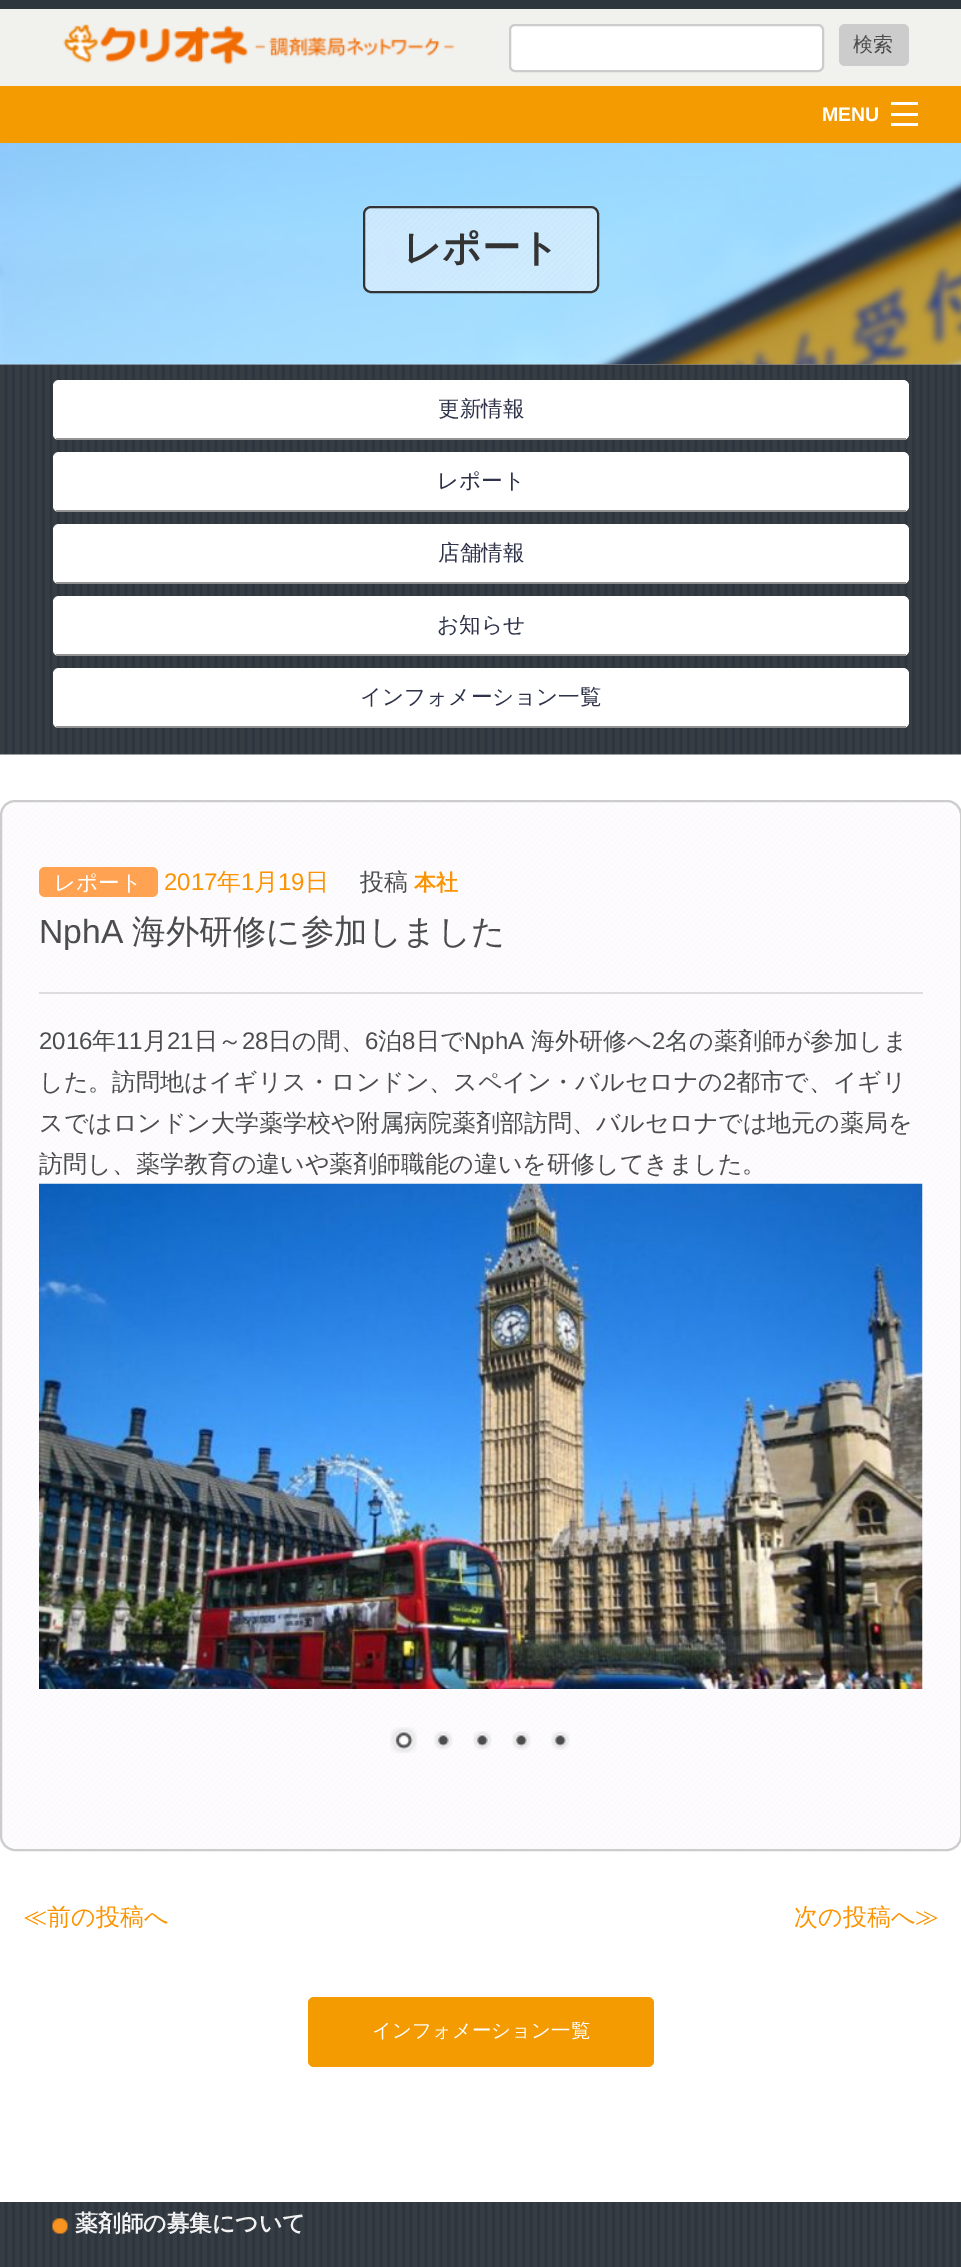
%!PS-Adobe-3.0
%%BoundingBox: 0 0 961 2267
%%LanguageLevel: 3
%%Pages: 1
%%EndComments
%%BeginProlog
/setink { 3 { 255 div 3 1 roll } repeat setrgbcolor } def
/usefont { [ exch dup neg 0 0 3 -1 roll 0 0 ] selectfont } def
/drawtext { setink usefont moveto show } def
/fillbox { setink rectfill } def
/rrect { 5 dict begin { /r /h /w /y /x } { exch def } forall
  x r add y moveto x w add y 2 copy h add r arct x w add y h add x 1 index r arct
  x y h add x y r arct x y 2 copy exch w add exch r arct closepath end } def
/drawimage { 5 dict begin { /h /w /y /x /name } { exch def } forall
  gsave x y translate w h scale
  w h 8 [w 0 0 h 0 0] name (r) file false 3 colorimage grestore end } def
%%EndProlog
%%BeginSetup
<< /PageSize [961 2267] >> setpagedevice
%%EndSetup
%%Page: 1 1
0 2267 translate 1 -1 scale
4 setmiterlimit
0 0 961 2267 255 255 255 fillbox
0 9 961 77 241 241 238 fillbox
0 0 961 9 45 54 61 fillbox
(assets/img1.rgb) 63 24 392 41 drawimage
255 255 255 setink
510 25 313 46 5 rrect gsave fill grestore
204 204 204 setink
2 setlinewidth
stroke
839 24 70 42 6 rrect fill
(検索) 853 51 /WenQuanYiZenHei-Medium 20 76 76 76 drawtext
0 86 961 57 244 155 2 fillbox
(MENU) 822 121 /LiberationSans-Bold 19.5 255 255 255 drawtext
891 123 27 3 255 255 255 fillbox
891 113 27 3 255 255 255 fillbox
891 102 27 3 255 255 255 fillbox
(assets/img2.rgb) 0 143 961 222 drawimage
(assets/img3.rgb) 363 205 236 88 drawimage
51 51 51 setink
364 207 234 85 7 rrect stroke
(レポート) 403 261 /WenQuanYiZenHei-Bold 38.5 51 51 51 drawtext
(assets/img4.rgb) 0 364 961 391 drawimage
255 255 255 setink
53 380 856 60 6 rrect fill
56 438 850 2 148 148 149 fillbox
(更新情報) 438 416 /WenQuanYiZenHei-Medium 21.6 46 51 74 drawtext
255 255 255 setink
53 452 856 60 6 rrect fill
56 510 850 2 148 148 149 fillbox
(レポート) 437 488 /WenQuanYiZenHei-Medium 21.6 46 51 74 drawtext
255 255 255 setink
53 524 856 60 6 rrect fill
56 582 850 2 148 148 149 fillbox
(店舗情報) 438 560 /WenQuanYiZenHei-Medium 21.6 46 51 74 drawtext
255 255 255 setink
53 596 856 60 6 rrect fill
56 654 850 2 148 148 149 fillbox
(お知らせ) 437 632 /WenQuanYiZenHei-Medium 21.6 46 51 74 drawtext
255 255 255 setink
53 668 856 60 6 rrect fill
56 726 850 2 148 148 149 fillbox
(インフォメーション一覧) 360 704 /WenQuanYiZenHei-Medium 21.6 46 51 74 drawtext
(assets/img5.rgb) 0 800 961 1051 drawimage
204 204 204 setink
1 801 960 1049 14 rrect stroke
255 162 82 setink
39 867 119 30 6 rrect fill
(レポート) 54 890 /WenQuanYiZenHei-Medium 21.6 255 255 255 drawtext
(2017) 164 890 /LiberationSans-Regular 24 252 147 0 drawtext
(年) 217 890 /WenQuanYiZenHei-Medium 24 252 147 0 drawtext
(1) 241 890 /LiberationSans-Regular 24 252 147 0 drawtext
(月) 254 890 /WenQuanYiZenHei-Medium 24 252 147 0 drawtext
(19) 278 890 /LiberationSans-Regular 24 252 147 0 drawtext
(日) 305 890 /WenQuanYiZenHei-Medium 24 252 147 0 drawtext
(投稿) 360 890 /WenQuanYiZenHei-Medium 24 76 76 76 drawtext
(本社) 414 890 /WenQuanYiZenHei-Bold 22 252 147 0 drawtext
(NphA) 39 943 /LiberationSans-Regular 33.6 76 76 76 drawtext
(海外研修に参加しました) 132 943 /WenQuanYiZenHei-Medium 33.6 76 76 76 drawtext
39 992 884 2 221 221 221 fillbox
(2016) 39 1049 /LiberationSans-Regular 24 76 76 76 drawtext
(年) 92 1049 /WenQuanYiZenHei-Medium 24 76 76 76 drawtext
(11) 116 1049 /LiberationSans-Regular 24 76 76 76 drawtext
(月) 143 1049 /WenQuanYiZenHei-Medium 24 76 76 76 drawtext
(21) 167 1049 /LiberationSans-Regular 24 76 76 76 drawtext
(日～) 194 1049 /WenQuanYiZenHei-Medium 24 76 76 76 drawtext
(28) 242 1049 /LiberationSans-Regular 24 76 76 76 drawtext
(日の間、) 268 1049 /WenQuanYiZenHei-Medium 24 76 76 76 drawtext
(6) 365 1049 /LiberationSans-Regular 24 76 76 76 drawtext
(泊) 378 1049 /WenQuanYiZenHei-Medium 24 76 76 76 drawtext
(8) 402 1049 /LiberationSans-Regular 24 76 76 76 drawtext
(日で) 416 1049 /WenQuanYiZenHei-Medium 24 76 76 76 drawtext
(NphA) 464 1049 /LiberationSans-Regular 24 76 76 76 drawtext
(海外研修へ) 531 1049 /WenQuanYiZenHei-Medium 24 76 76 76 drawtext
(2) 652 1049 /LiberationSans-Regular 24 76 76 76 drawtext
(名の薬剤師が参加しま) 665 1049 /WenQuanYiZenHei-Medium 24 76 76 76 drawtext
(した。訪問地はイギリス・ロンドン、スペイン・バルセロナの) 39 1090 /WenQuanYiZenHei-Medium 24 76 76 76 drawtext
(2) 723 1090 /LiberationSans-Regular 24 76 76 76 drawtext
(都市で、イギリ) 736 1090 /WenQuanYiZenHei-Medium 24 76 76 76 drawtext
(スではロンドン大学薬学校や附属病院薬剤部訪問、バルセロナでは地元の薬局を) 39 1131 /WenQuanYiZenHei-Medium 24 76 76 76 drawtext
(訪問し、薬学教育の違いや薬剤師職能の違いを研修してきました。) 39 1172 /WenQuanYiZenHei-Medium 24 76 76 76 drawtext
(assets/img6.rgb) 39 1183 884 506 drawimage
(assets/img7.rgb) 390 1727 27 26 drawimage
(assets/img8.rgb) 434 1731 19 19 drawimage
(assets/img9.rgb) 473 1731 19 19 drawimage
(assets/img10.rgb) 512 1731 19 19 drawimage
(assets/img11.rgb) 551 1731 19 19 drawimage
(≪前の投稿へ) 23 1925 /WenQuanYiZenHei-Medium 24 252 147 0 drawtext
(次の投稿へ≫) 794 1925 /WenQuanYiZenHei-Medium 24 252 147 0 drawtext
244 155 2 setink
308 1997 346 70 6 rrect fill
(インフォメーション一覧) 372 2037 /WenQuanYiZenHei-Medium 19.5 255 255 255 drawtext
(assets/img12.rgb) 0 2202 961 65 drawimage
(assets/img13.rgb) 52 2218 16 16 drawimage
(薬剤師の募集について) 75 2231 /WenQuanYiZenHei-Bold 22.75 242 242 242 drawtext
showpage
%%EOF
